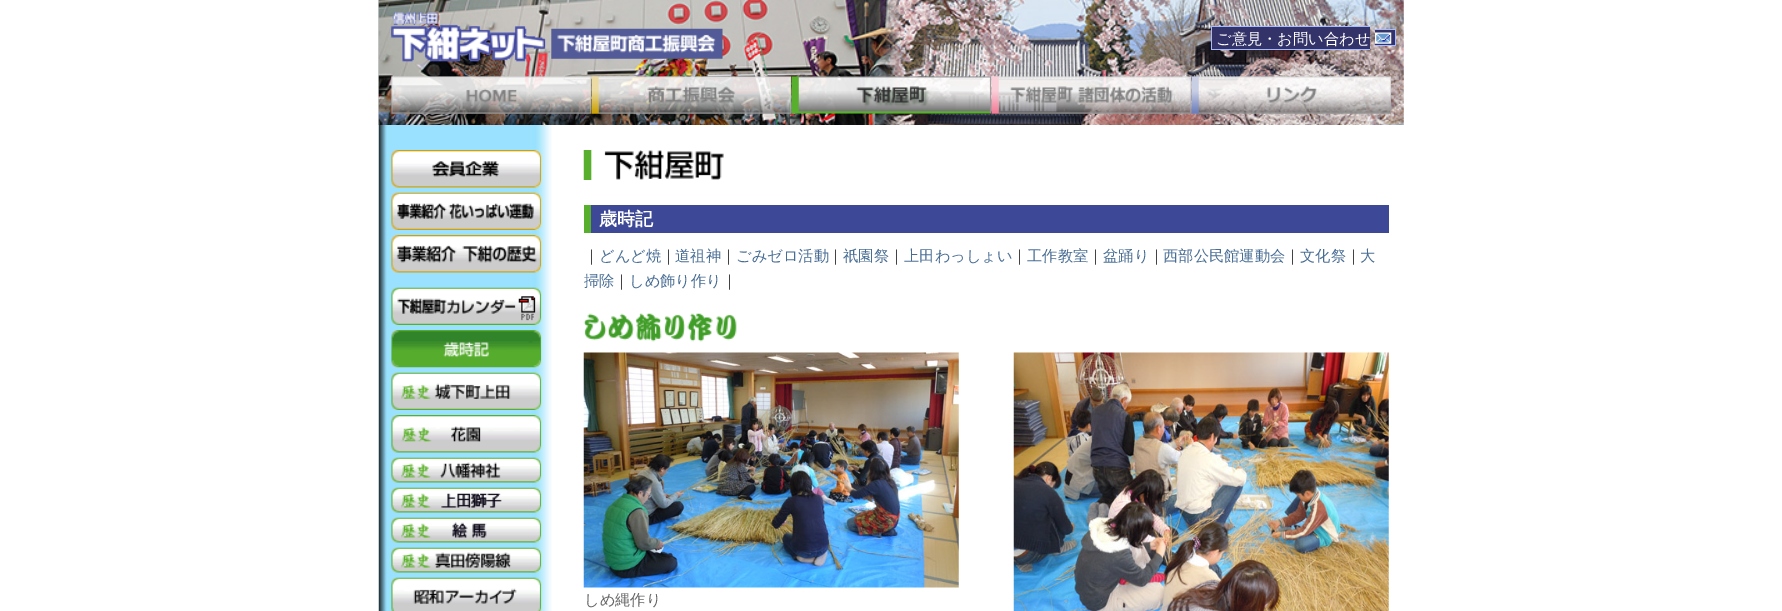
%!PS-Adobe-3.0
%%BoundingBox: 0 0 1782 611
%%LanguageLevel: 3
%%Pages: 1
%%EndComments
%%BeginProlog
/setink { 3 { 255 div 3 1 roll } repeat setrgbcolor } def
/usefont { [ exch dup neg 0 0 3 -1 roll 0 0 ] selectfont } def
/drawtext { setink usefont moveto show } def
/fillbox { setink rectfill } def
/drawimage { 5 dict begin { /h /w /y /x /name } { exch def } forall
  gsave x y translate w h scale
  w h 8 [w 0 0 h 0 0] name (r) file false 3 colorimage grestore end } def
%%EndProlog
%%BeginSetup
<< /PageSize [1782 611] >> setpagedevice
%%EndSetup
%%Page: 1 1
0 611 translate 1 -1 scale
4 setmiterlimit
0 0 1782 611 255 255 255 fillbox
(assets/img1.rgb) 378 0 174 611 drawimage
(assets/img2.rgb) 378 0 1026 125 drawimage
(assets/img3.rgb) 391 12 332 50 drawimage
1212 27 158 22 51 51 106 fillbox
(ご意見・お問い合わせ) 1216 44 /WenQuanYiZenHei-Medium 15.25 255 255 255 drawtext
1211 26 159 1 166 186 255 fillbox
1211 49 159 1 166 186 255 fillbox
1211 26 1 24 166 186 255 fillbox
1375 30 20 15 51 51 106 fillbox
1375 29 21 1 166 186 255 fillbox
1395 29 1 17 166 186 255 fillbox
1375 45 21 1 166 186 255 fillbox
(assets/img4.rgb) 1375 32 17 12 drawimage
(assets/img5.rgb) 391 76 201 38 drawimage
(assets/img6.rgb) 591 76 201 38 drawimage
(assets/img7.rgb) 791 76 201 38 drawimage
(assets/img8.rgb) 991 76 201 38 drawimage
(assets/img9.rgb) 1191 76 201 38 drawimage
(assets/img10.rgb) 391 150 151 38 drawimage
(assets/img11.rgb) 391 192 151 38 drawimage
(assets/img12.rgb) 391 235 151 38 drawimage
(assets/img13.rgb) 391 287 151 38 drawimage
(assets/img14.rgb) 391 330 151 38 drawimage
(assets/img15.rgb) 391 372 151 38 drawimage
(assets/img16.rgb) 391 415 151 38 drawimage
(assets/img17.rgb) 391 457 151 26 drawimage
(assets/img18.rgb) 391 487 151 26 drawimage
(assets/img19.rgb) 391 517 151 26 drawimage
(assets/img20.rgb) 391 547 151 26 drawimage
(assets/img21.rgb) 391 577 151 34 drawimage
(assets/img22.rgb) 583 150 141 30 drawimage
591 205 798 28 61 73 151 fillbox
584 205 7 28 88 175 45 fillbox
(歳時記) 599 225 /WenQuanYiZenHei-Bold 18 255 255 255 drawtext
(｜) 584 261 /WenQuanYiZenHei-Medium 15.25 0 0 0 drawtext
(どんど焼) 599 261 /WenQuanYiZenHei-Medium 15.25 72 109 148 drawtext
(｜) 661 261 /WenQuanYiZenHei-Medium 15.25 0 0 0 drawtext
(道祖神) 675 261 /WenQuanYiZenHei-Medium 15.25 72 109 148 drawtext
(｜) 721 261 /WenQuanYiZenHei-Medium 15.25 0 0 0 drawtext
(ごみゼロ活動) 736 261 /WenQuanYiZenHei-Medium 15.25 72 109 148 drawtext
(｜) 828 261 /WenQuanYiZenHei-Medium 15.25 0 0 0 drawtext
(祇園祭) 843 261 /WenQuanYiZenHei-Medium 15.25 72 109 148 drawtext
(｜) 889 261 /WenQuanYiZenHei-Medium 15.25 0 0 0 drawtext
(上田わっしょい) 904 261 /WenQuanYiZenHei-Medium 15.25 72 109 148 drawtext
(｜) 1012 261 /WenQuanYiZenHei-Medium 15.25 0 0 0 drawtext
(工作教室) 1027 261 /WenQuanYiZenHei-Medium 15.25 72 109 148 drawtext
(｜) 1088 261 /WenQuanYiZenHei-Medium 15.25 0 0 0 drawtext
(盆踊り) 1103 261 /WenQuanYiZenHei-Medium 15.25 72 109 148 drawtext
(｜) 1149 261 /WenQuanYiZenHei-Medium 15.25 0 0 0 drawtext
(西部公民館運動会) 1163 261 /WenQuanYiZenHei-Medium 15.25 72 109 148 drawtext
(｜) 1285 261 /WenQuanYiZenHei-Medium 15.25 0 0 0 drawtext
(文化祭) 1300 261 /WenQuanYiZenHei-Medium 15.25 72 109 148 drawtext
(｜) 1346 261 /WenQuanYiZenHei-Medium 15.25 0 0 0 drawtext
(大) 1360 261 /WenQuanYiZenHei-Medium 15.25 72 109 148 drawtext
(掃除) 584 286 /WenQuanYiZenHei-Medium 15.25 72 109 148 drawtext
(｜) 614 286 /WenQuanYiZenHei-Medium 15.25 0 0 0 drawtext
(しめ飾り作り) 629 286 /WenQuanYiZenHei-Medium 15.25 72 109 148 drawtext
(｜) 722 286 /WenQuanYiZenHei-Medium 15.25 0 0 0 drawtext
(assets/img23.rgb) 583 313 154 29 drawimage
(assets/img24.rgb) 583 352 376 236 drawimage
(しめ縄作り) 584 605 /WenQuanYiZenHei-Medium 15.25 102 102 102 drawtext
(assets/img25.rgb) 1013 352 376 259 drawimage
showpage
%%EOF
